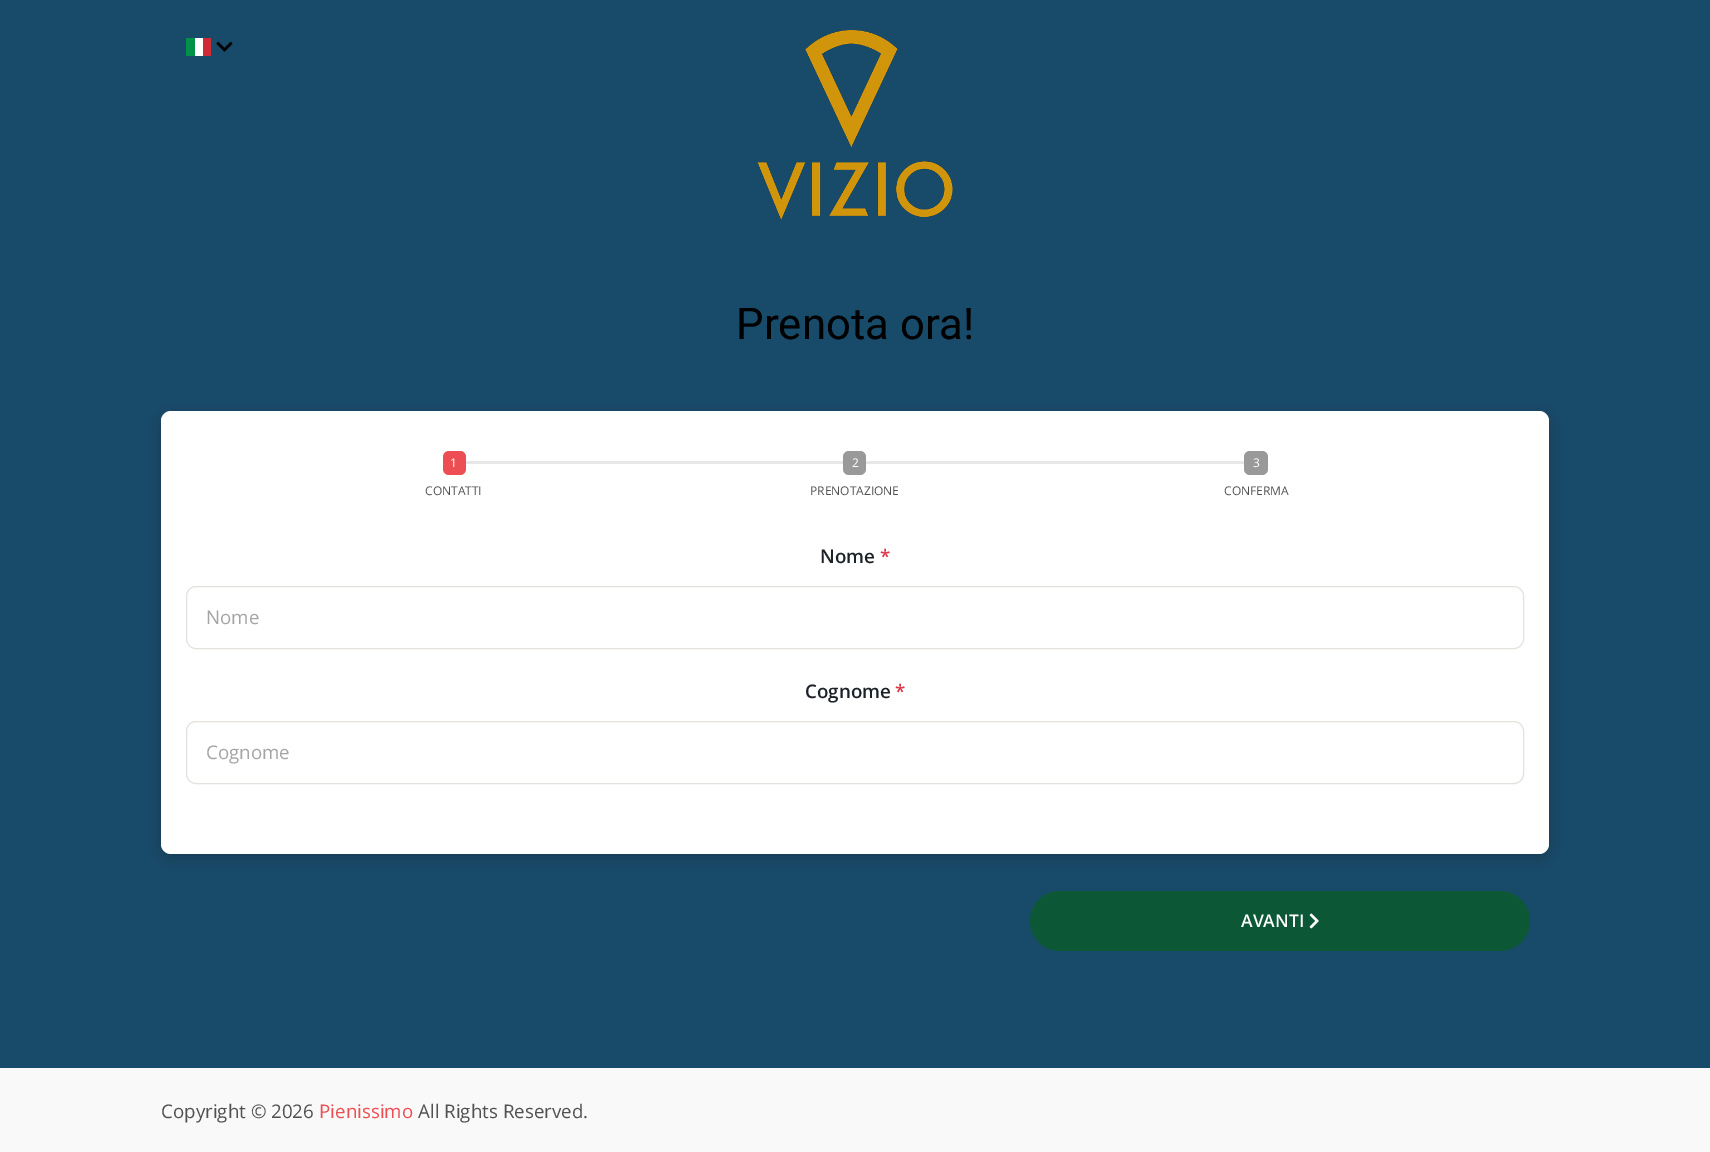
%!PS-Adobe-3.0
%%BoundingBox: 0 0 1710 1152
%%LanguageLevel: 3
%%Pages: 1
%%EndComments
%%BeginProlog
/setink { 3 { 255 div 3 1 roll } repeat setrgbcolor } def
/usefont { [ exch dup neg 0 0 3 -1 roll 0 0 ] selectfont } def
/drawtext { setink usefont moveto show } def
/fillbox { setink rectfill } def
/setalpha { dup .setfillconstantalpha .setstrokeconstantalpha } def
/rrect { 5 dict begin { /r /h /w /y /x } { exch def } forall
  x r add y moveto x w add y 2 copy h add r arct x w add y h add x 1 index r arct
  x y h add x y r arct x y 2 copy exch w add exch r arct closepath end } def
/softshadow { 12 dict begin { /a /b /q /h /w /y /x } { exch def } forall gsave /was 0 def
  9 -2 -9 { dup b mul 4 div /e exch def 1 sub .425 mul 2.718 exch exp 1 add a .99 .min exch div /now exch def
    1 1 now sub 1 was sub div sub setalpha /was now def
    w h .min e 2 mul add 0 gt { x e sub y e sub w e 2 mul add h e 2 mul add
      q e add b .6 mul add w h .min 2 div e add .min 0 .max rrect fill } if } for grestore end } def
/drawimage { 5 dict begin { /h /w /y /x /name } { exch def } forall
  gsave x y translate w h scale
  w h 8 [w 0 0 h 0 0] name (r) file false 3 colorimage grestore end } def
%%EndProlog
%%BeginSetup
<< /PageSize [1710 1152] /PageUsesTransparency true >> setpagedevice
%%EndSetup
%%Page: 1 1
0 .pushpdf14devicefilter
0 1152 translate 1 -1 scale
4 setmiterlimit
0 0 1710 1152 24 74 106 fillbox
195 38 8 18 255 255 255 fillbox
186 38 9 18 0 146 70 fillbox
203 38 8 18 206 43 55 fillbox
(assets/img1.rgb) 216 41 17 11 drawimage
(assets/img2.rgb) 757 30 196 190 drawimage
(Prenota ora!) 736 339 /Roboto-Regular 43.75 0 0 0 drawtext
25 31 33 setink
161 415 1388 443 10 7.5 0.3 softshadow
255 255 255 setink
161 411 1388 443 10 rrect fill
466 461 377 3 232 231 231 fillbox
237 78 83 setink
443 451 23 24 6 rrect fill
(1) 450 467 /OpenSans-Regular 12 255 255 255 drawtext
153 153 153 setink
843 451 23 24 6 rrect fill
(2) 852 467 /OpenSans-Regular 12 255 255 255 drawtext
(CONTATTI) 425 495 /OpenSans-Regular 12 81 81 81 drawtext
(PRENOTAZIONE) 810 495 /OpenSans-Regular 12 81 81 81 drawtext
866 461 378 3 232 231 231 fillbox
153 153 153 setink
1244 451 24 24 6 rrect fill
(3) 1253 467 /OpenSans-Regular 12 255 255 255 drawtext
(CONFERMA) 1224 495 /OpenSans-Regular 12 81 81 81 drawtext
(Nome) 820 563 /OpenSans-SemiBold 18.75 29 34 40 drawtext
(*) 880 563 /OpenSans-SemiBold 18.75 220 53 69 drawtext
229 225 220 setink
186.5 586.5 1337 62 9.5 rrect stroke
(Nome) 206 624 /OpenSans-Regular 18.75 165 165 165 drawtext
(Cognome) 805 698 /OpenSans-SemiBold 18.75 29 34 40 drawtext
(*) 895 698 /OpenSans-SemiBold 18.75 220 53 69 drawtext
229 225 220 setink
186.5 721.5 1337 62 9.5 rrect stroke
(Cognome) 206 759 /OpenSans-Regular 18.75 165 165 165 drawtext
12 87 53 setink
1030 891 500 60 30 rrect fill
(AVANTI) 1241 927 /OpenSans-SemiBold 17.5 255 255 255 drawtext
(assets/img3.rgb) 1309 913 10 16 drawimage
0 1068 1710 84 249 249 249 fillbox
(Copyright © 2026) 161 1118 /OpenSans-Regular 18.75 81 81 81 drawtext
(Pienissimo) 319 1118 /OpenSans-Regular 18.75 237 78 83 drawtext
(All Rights Reserved.) 418 1118 /OpenSans-Regular 18.75 81 81 81 drawtext
.poppdf14devicefilter showpage
%%EOF
